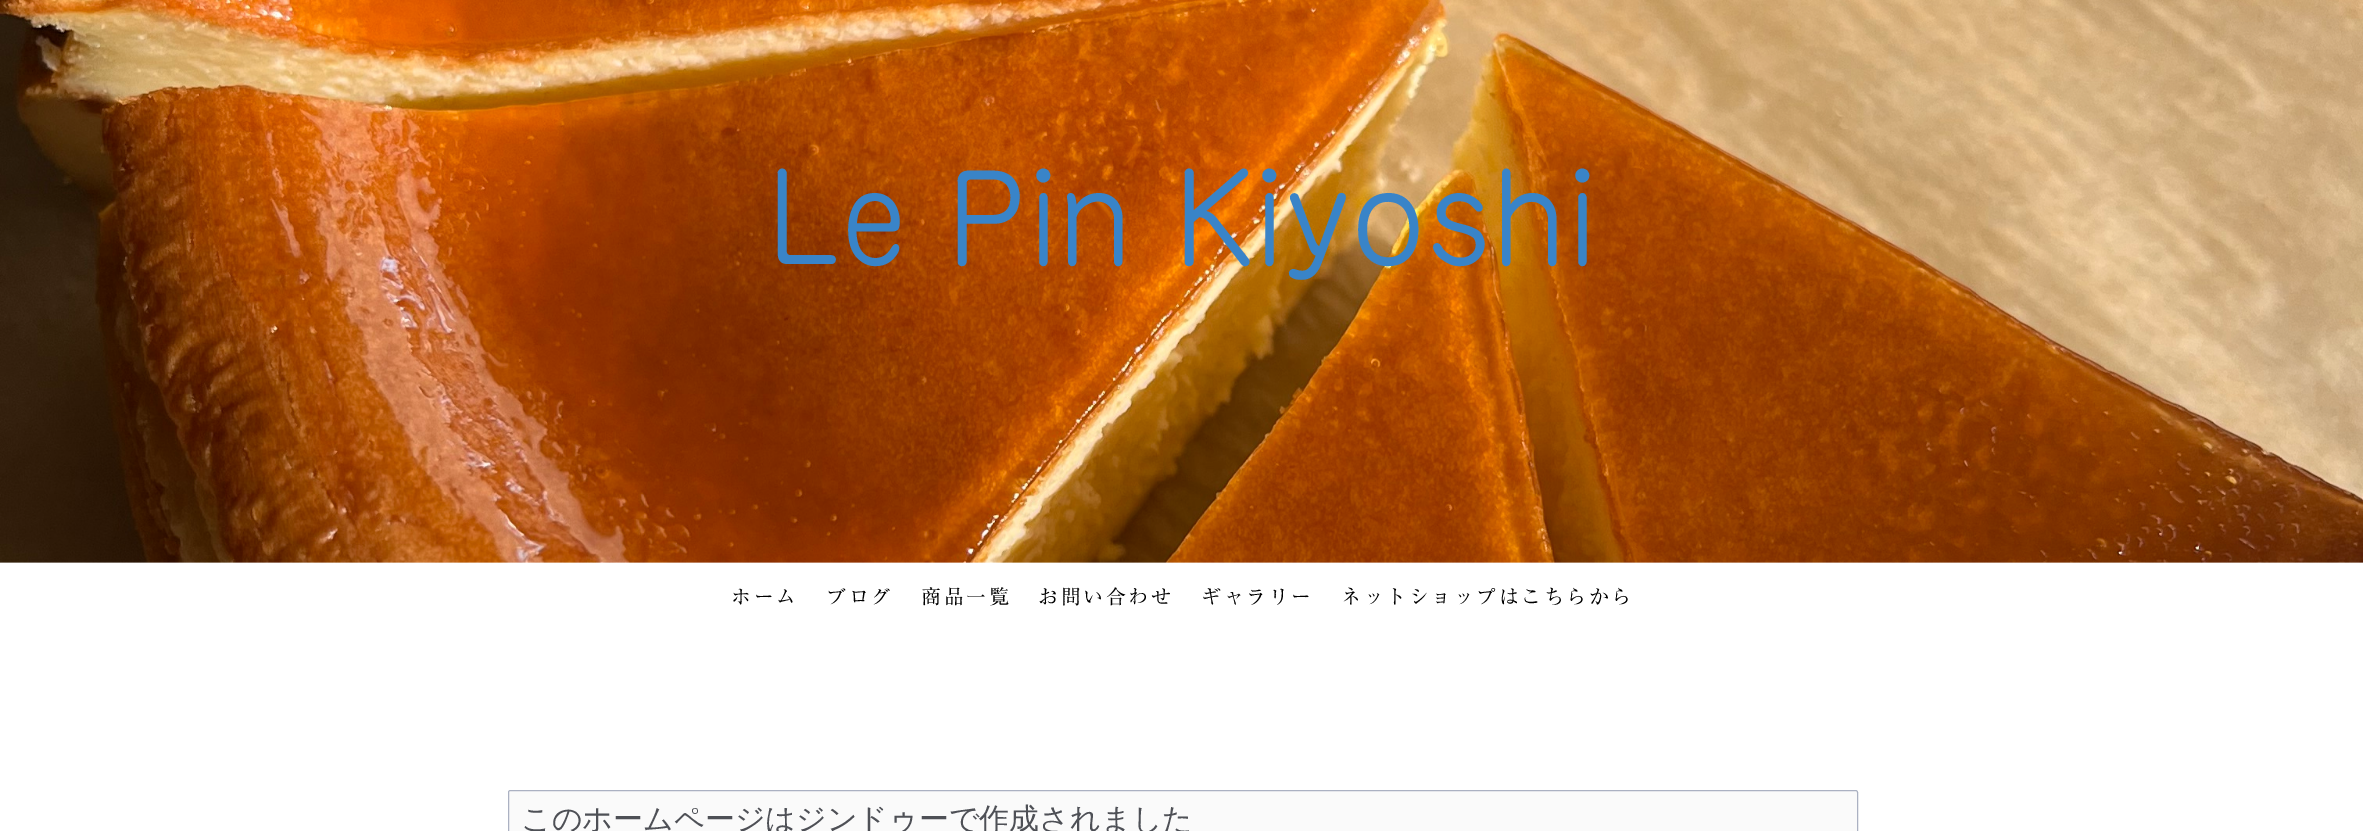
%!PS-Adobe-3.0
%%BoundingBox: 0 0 2363 831
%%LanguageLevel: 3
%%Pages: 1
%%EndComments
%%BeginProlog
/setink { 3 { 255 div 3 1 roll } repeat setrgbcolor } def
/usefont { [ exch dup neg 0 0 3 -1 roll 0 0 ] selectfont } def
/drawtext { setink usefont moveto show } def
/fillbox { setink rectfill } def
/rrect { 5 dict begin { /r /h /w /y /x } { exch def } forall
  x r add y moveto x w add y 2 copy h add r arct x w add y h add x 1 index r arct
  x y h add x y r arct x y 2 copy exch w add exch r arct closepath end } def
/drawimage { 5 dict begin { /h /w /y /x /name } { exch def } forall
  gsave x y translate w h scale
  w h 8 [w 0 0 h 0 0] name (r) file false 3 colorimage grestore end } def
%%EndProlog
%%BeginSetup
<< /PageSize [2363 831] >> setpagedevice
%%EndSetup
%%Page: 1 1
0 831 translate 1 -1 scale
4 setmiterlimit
0 0 2363 831 255 255 255 fillbox
(assets/img1.rgb) 0 0 2363 563 drawimage
(Le Pin Kiyoshi) 766 264 /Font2-Regular 118.75 57 132 200 drawtext
/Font-Regular 20 usefont
0 0 0 setink
731 604 moveto 2.5 0 (ホーム) ashow
826 604 moveto 2.5 0 (ブログ) ashow
921 604 moveto 2.5 0 (商品一覧) ashow
1038 604 moveto 2.5 0 (お問い合わせ) ashow
1201 604 moveto 2.5 0 (ギャラリー) ashow
1341 604 moveto 2.5 0 (ネットショップはこちらから) ashow
250 250 250 setink
508.5 790.5 1349 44 2 rrect gsave fill grestore
171 177 194 setink
stroke
(このホームページはジンドゥーで作成されました) 521 829 /WenQuanYiZenHei-Medium 30 78 80 86 drawtext
showpage
%%EOF
